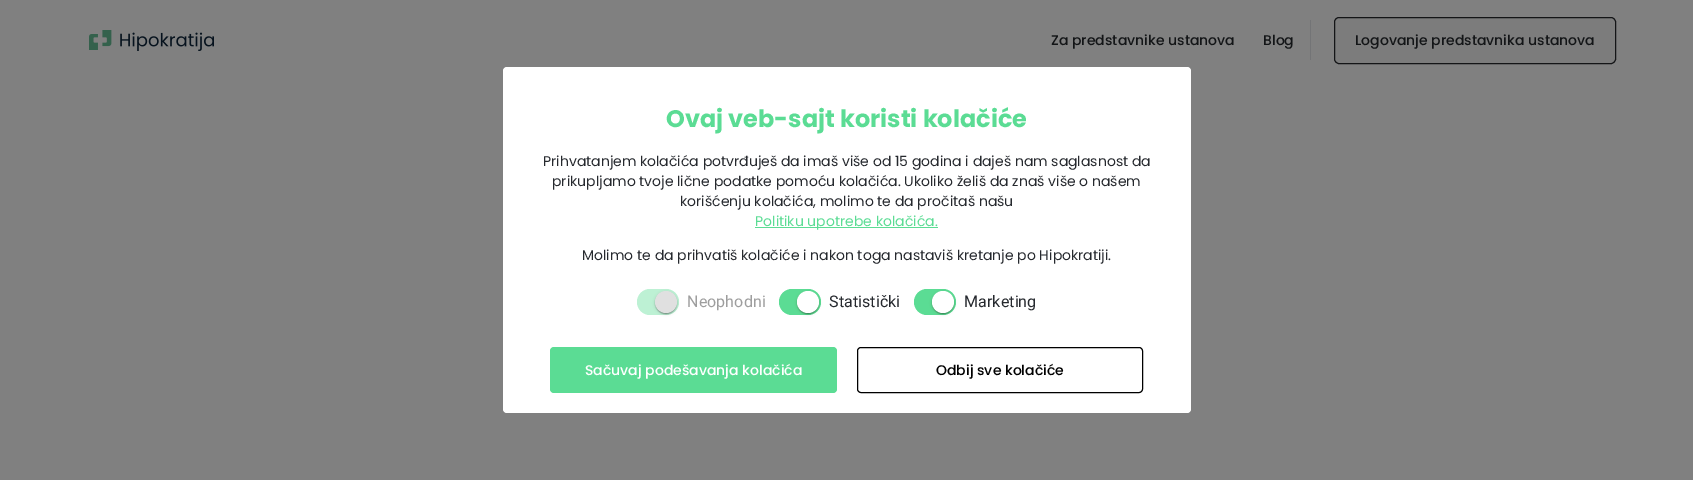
%!PS-Adobe-3.0
%%BoundingBox: 0 0 1693 480
%%LanguageLevel: 3
%%Pages: 1
%%EndComments
%%BeginProlog
/setink { 3 { 255 div 3 1 roll } repeat setrgbcolor } def
/usefont { [ exch dup neg 0 0 3 -1 roll 0 0 ] selectfont } def
/drawtext { setink usefont moveto show } def
/fillbox { setink rectfill } def
/setalpha { dup .setfillconstantalpha .setstrokeconstantalpha } def
/disc { newpath 0 360 arc closepath } def
/rrect { 5 dict begin { /r /h /w /y /x } { exch def } forall
  x r add y moveto x w add y 2 copy h add r arct x w add y h add x 1 index r arct
  x y h add x y r arct x y 2 copy exch w add exch r arct closepath end } def
/softshadow { 12 dict begin { /a /b /q /h /w /y /x } { exch def } forall gsave /was 0 def
  9 -2 -9 { dup b mul 4 div /e exch def 1 sub .425 mul 2.718 exch exp 1 add a .99 .min exch div /now exch def
    1 1 now sub 1 was sub div sub setalpha /was now def
    w h .min e 2 mul add 0 gt { x e sub y e sub w e 2 mul add h e 2 mul add
      q e add b .6 mul add w h .min 2 div e add .min 0 .max rrect fill } if } for grestore end } def
/drawimage { 5 dict begin { /h /w /y /x /name } { exch def } forall
  gsave x y translate w h scale
  w h 8 [w 0 0 h 0 0] name (r) file false 3 colorimage grestore end } def
%%EndProlog
%%BeginSetup
<< /PageSize [1693 480] /PageUsesTransparency true >> setpagedevice
%%EndSetup
%%Page: 1 1
0 .pushpdf14devicefilter
0 480 translate 1 -1 scale
4 setmiterlimit
0 0 1693 480 128 128 128 fillbox
(assets/img1.rgb) 89 30 125 21 drawimage
(Za predstavnike ustanova) 1051 45 /Poppins-Medium 14 19 21 23 drawtext
(Blog) 1263 45 /Poppins-Medium 14 19 21 23 drawtext
1310 20 1 40 115 116 118 fillbox
124 124 124 setink
1335 18 280 45 4 rrect fill
20 21 23 setink
1334.5 17.5 281 46 4.5 rrect stroke
(Logovanje predstavnika ustanova) 1355 45 /Poppins-Medium 14 19 21 23 drawtext
255 255 255 setink
503 67 688 346 4 rrect fill
(Ovaj veb-sajt koristi kolačiće) 666 127 /Poppins-Bold 24 91 220 148 drawtext
(Prihvatanjem kolačića potvrđuješ da imaš više od 15 godina i daješ nam saglasnost da) 543 166 /Poppins-Regular 14 38 41 46 drawtext
(prikupljamo tvoje lične podatke pomoću kolačića. Ukoliko želiš da znaš više o našem) 552 186 /Poppins-Regular 14 38 41 46 drawtext
(korišćenju kolačića, molimo te da pročitaš našu) 680 206 /Poppins-Regular 14 38 41 46 drawtext
755 227 183 1 91 220 148 fillbox
(Politiku upotrebe kolačića.) 755 226 /Poppins-Regular 14 91 220 148 drawtext
(Molimo te da prihvatiš kolačiće i nakon toga nastaviš kretanje po Hipokratiji.) 582 260 /Poppins-Regular 14 38 41 46 drawtext
189 241 212 setink
637 289 42 26 13 rrect fill
0 0 0 setink
655 292 22 22 11 1.5 0.12 softshadow
655 292 22 22 11 0.5 0.14 softshadow
656 294 20 20 10 0.5 0.2 softshadow
224 224 224 setink
666 302 11 disc fill
/Roboto-Regular 16 usefont
158 158 158 setink
687 307 moveto 0.1 0 (Neophodni) ashow
91 220 148 setink
779 289 42 26 13 rrect fill
0 0 0 setink
797 292 22 22 11 1.5 0.12 softshadow
797 292 22 22 11 0.5 0.14 softshadow
798 294 20 20 10 0.5 0.2 softshadow
255 255 255 setink
808 302 11 disc fill
38 41 46 setink
829 307 moveto 0.1 0 (Statistički) ashow
91 220 148 setink
914 289 42 26 13 rrect fill
0 0 0 setink
932 292 22 22 11 1.5 0.12 softshadow
932 292 22 22 11 0.5 0.14 softshadow
933 294 20 20 10 0.5 0.2 softshadow
255 255 255 setink
943 302 11 disc fill
38 41 46 setink
964 307 moveto 0.1 0 (Marketing) ashow
91 220 148 setink
550 347 287 46 4 rrect fill
(Sačuvaj podešavanja kolačića) 585 375 /Poppins-Medium 14 255 255 255 drawtext
0 0 0 setink
857.5 347.5 285 45 3.5 rrect stroke
(Odbij sve kolačiće) 936 375 /Poppins-Medium 14 0 0 0 drawtext
.poppdf14devicefilter showpage
%%EOF
